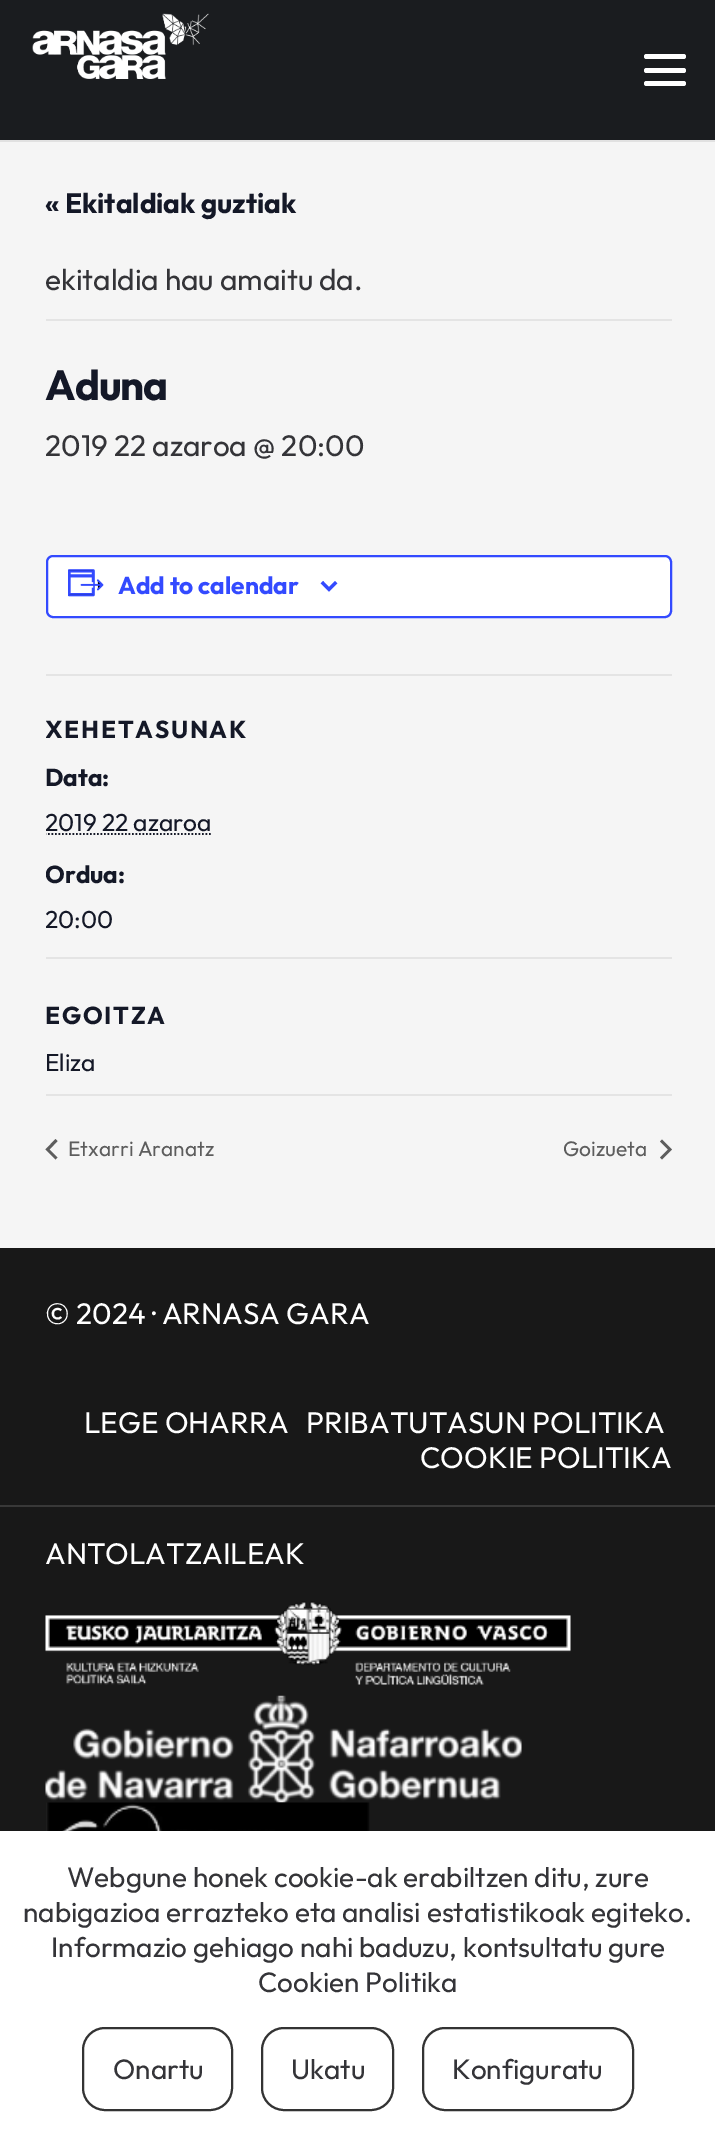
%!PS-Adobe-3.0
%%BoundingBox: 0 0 715 2141
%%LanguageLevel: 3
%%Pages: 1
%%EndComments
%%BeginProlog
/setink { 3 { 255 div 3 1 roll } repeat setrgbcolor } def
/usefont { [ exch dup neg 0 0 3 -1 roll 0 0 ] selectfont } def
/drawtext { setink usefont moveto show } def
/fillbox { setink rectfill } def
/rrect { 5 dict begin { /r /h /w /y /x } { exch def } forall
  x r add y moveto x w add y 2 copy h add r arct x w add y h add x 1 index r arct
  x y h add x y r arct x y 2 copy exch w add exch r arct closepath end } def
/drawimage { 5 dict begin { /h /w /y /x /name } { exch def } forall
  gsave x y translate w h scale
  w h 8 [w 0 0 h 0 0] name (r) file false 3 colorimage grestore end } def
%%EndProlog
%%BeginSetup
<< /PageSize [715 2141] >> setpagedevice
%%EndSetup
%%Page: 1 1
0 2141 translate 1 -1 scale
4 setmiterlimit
0 0 715 2141 245 245 245 fillbox
225 225 225 setink
0 140 moveto 0 142 lineto 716 142 lineto 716 2 lineto 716 140 lineto closepath fill
0 0 715 140 26 28 31 fillbox
(assets/img1.rgb) 32 13 177 66 drawimage
255 255 255 setink
644 68 42 5 2.5 rrect fill
644 54 42 5 2.5 rrect fill
644 81 42 5 2.5 rrect fill
(« Ekitaldiak guztiak) 45 213 /Outfit-Bold 28 20 24 39 drawtext
46 319 626 2 228 228 228 fillbox
(ekitaldia hau amaitu da.) 45 290 /Outfit-Regular 29.75 52 52 56 drawtext
/Outfit-Bold 42 usefont
20 24 39 setink
45 400 moveto -1 0 (Aduna) ashow
(2019 22 azaroa @ 20:00) 45 456 /Outfit-Regular 29.75 52 52 56 drawtext
255 255 255 setink
47 556 624 61 6 rrect gsave fill grestore
51 74 255 setink
2 setlinewidth
stroke
(assets/img2.rgb) 68 569 36 28 drawimage
(Add to calendar) 118 594 /Outfit-Bold 24.5 51 74 255 drawtext
(assets/img3.rgb) 320 581 18 11 drawimage
46 674 626 2 228 228 228 fillbox
gsave
46 499 626 595 rectclip
20 24 39 setink
45 738 moveto 1.75 0 (XEHETASUNAK) ashow
grestore
(Data:) 45 786 /Outfit-Bold 24.5 20 24 39 drawtext
gsave
46 499 626 595 rectclip
(2019 22 azaroa) 45 831 /Outfit-Regular 24.5 20 24 39 drawtext
1.8 setlinewidth
[1.75 1.75] 0 setdash
44.5 834 moveto 211 834 lineto stroke
(Ordua:) 45 883 /Outfit-Bold 24.5 20 24 39 drawtext
(20:00) 45 928 /Outfit-Regular 24.5 20 24 39 drawtext
grestore
46 957 626 2 228 228 228 fillbox
20 24 39 setink
45 1024 moveto 1.75 0 (EGOITZA) ashow
(Eliza) 45 1071 /Outfit-Regular 24.5 20 24 39 drawtext
46 1094 626 2 228 228 228 fillbox
93 93 93 setink
57.5 1157.5 moveto 55.5 1159.5 lineto 45.5 1149.5 lineto 55.5 1139 lineto 57.5 1141 lineto 49.5 1149.5 lineto closepath fill
(Etxarri Aranatz) 68 1156 /Outfit-Regular 21 93 93 93 drawtext
(Goizueta) 563 1156 /Outfit-Regular 21 93 93 93 drawtext
660 1141.5 moveto 662 1139.5 lineto 672 1149.5 lineto 662 1159.5 lineto 660 1157.5 lineto 668 1149.5 lineto closepath fill
0 1248 715 583 24 24 24 fillbox
0 1505 715 2 56 56 56 fillbox
(© 2024 · ARNASA GARA) 45 1324 /Outfit-Regular 29.75 255 255 255 drawtext
(LEGE OHARRA) 84 1433 /Outfit-Regular 29.75 255 255 255 drawtext
(PRIBATUTASUN POLITIKA) 306 1433 /Outfit-Regular 29.75 255 255 255 drawtext
(COOKIE POLITIKA) 420 1468 /Outfit-Regular 29.75 255 255 255 drawtext
(ANTOLATZAILEAK) 45 1564 /Outfit-Regular 29.75 255 255 255 drawtext
(assets/img4.rgb) 45 1601 526 84 drawimage
(assets/img5.rgb) 45 1695 477 108 drawimage
(assets/img6.rgb) 46 1802 324 29 drawimage
0 1831 715 310 255 255 255 fillbox
(Webgune honek cookie-ak erabiltzen ditu, zure) 67 1887 /Outfit-Regular 28 52 52 56 drawtext
(nabigazioa errazteko eta analisi estatistikoak egiteko.) 23 1922 /Outfit-Regular 28 52 52 56 drawtext
(Informazio gehiago nahi baduzu, kontsultatu gure) 51 1957 /Outfit-Regular 28 52 52 56 drawtext
(Cookien Politika) 258 1992 /Outfit-Regular 28 52 52 56 drawtext
51 51 51 setink
83 2028 149 82 22 rrect stroke
(Onartu) 113 2079 /Outfit-Regular 28 52 52 56 drawtext
51 51 51 setink
262 2028 131 82 22 rrect stroke
(Ukatu) 291 2079 /Outfit-Regular 28 52 52 56 drawtext
51 51 51 setink
423 2028 210 82 22 rrect stroke
(Konfiguratu) 452 2079 /Outfit-Regular 28 52 52 56 drawtext
showpage
%%EOF
